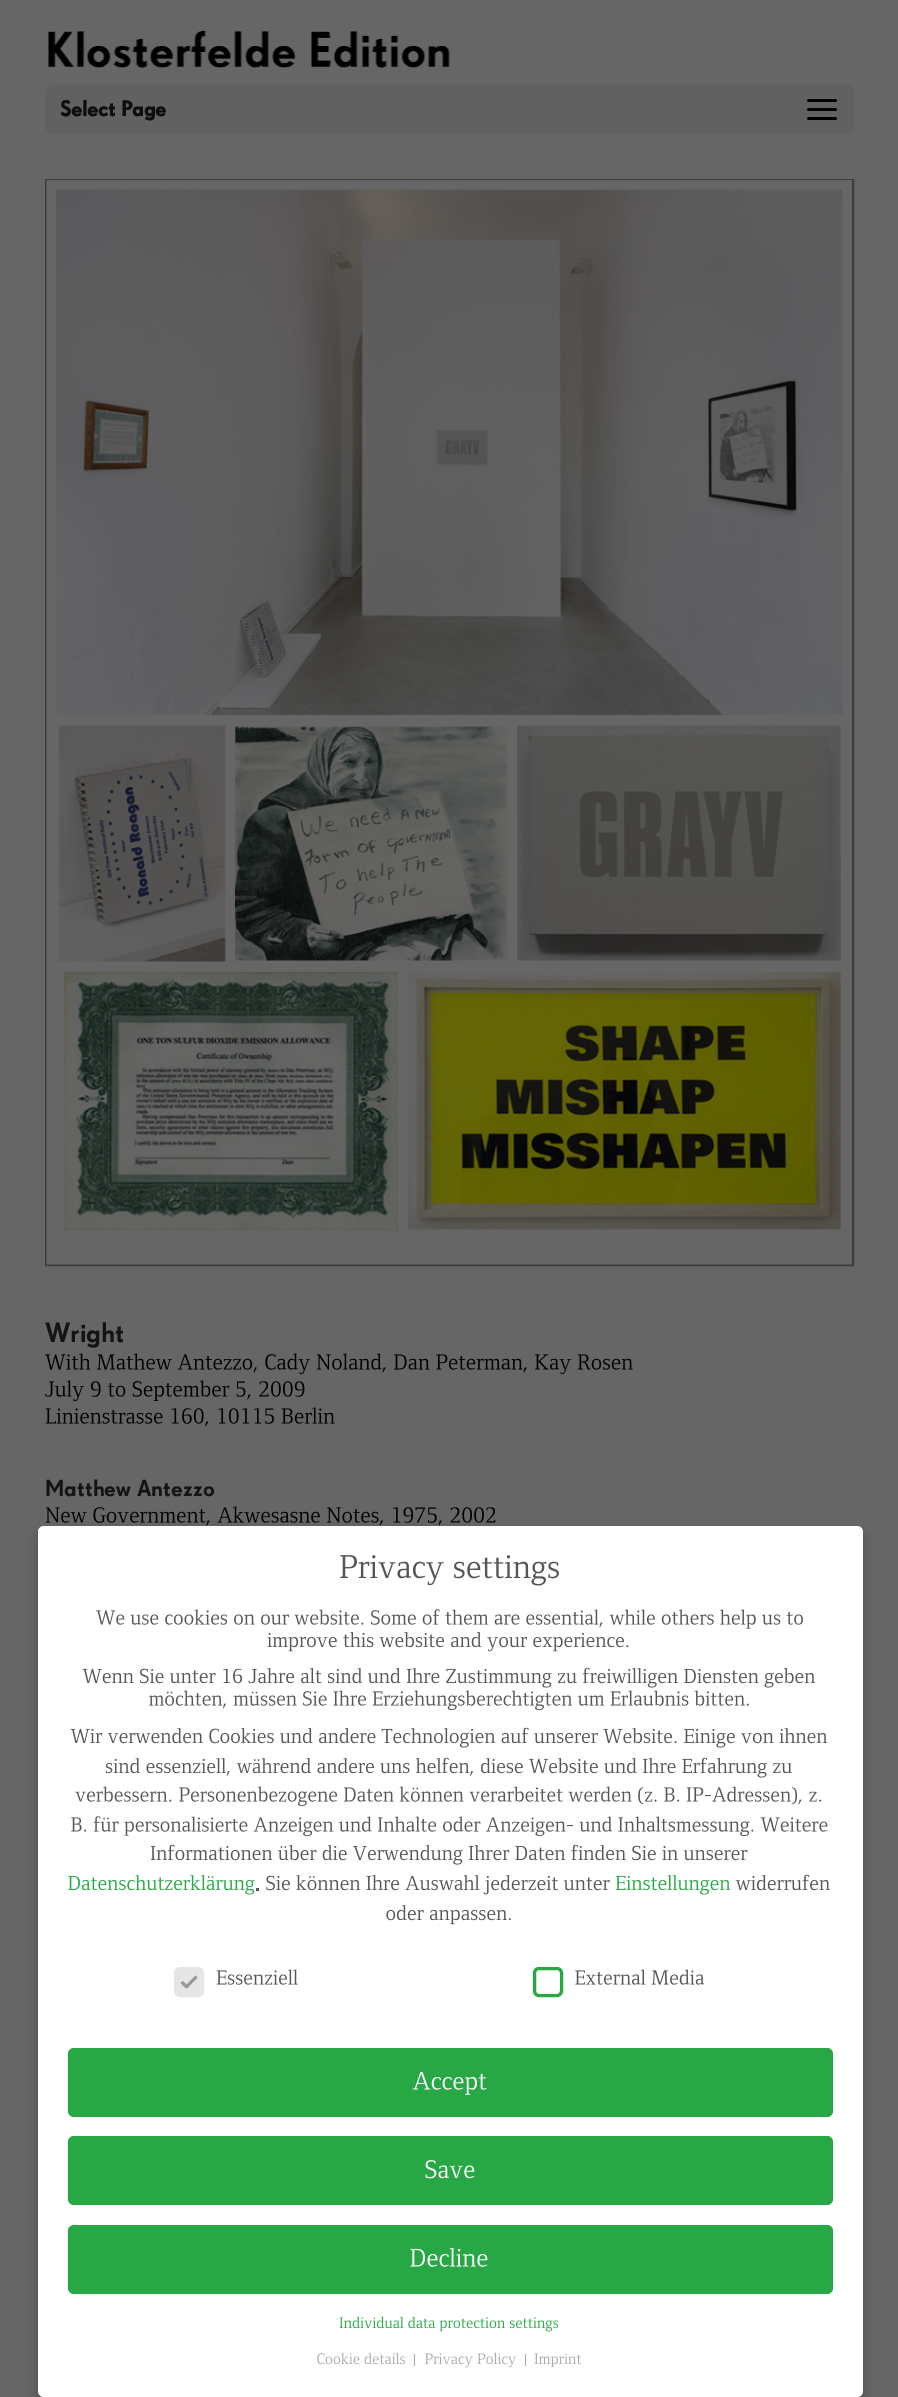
%!PS-Adobe-3.0
%%BoundingBox: 0 0 898 2397
%%LanguageLevel: 3
%%Pages: 1
%%EndComments
%%BeginProlog
/setink { 3 { 255 div 3 1 roll } repeat setrgbcolor } def
/usefont { [ exch dup neg 0 0 3 -1 roll 0 0 ] selectfont } def
/drawtext { setink usefont moveto show } def
/fillbox { setink rectfill } def
/setalpha { dup .setfillconstantalpha .setstrokeconstantalpha } def
/rrect { 5 dict begin { /r /h /w /y /x } { exch def } forall
  x r add y moveto x w add y 2 copy h add r arct x w add y h add x 1 index r arct
  x y h add x y r arct x y 2 copy exch w add exch r arct closepath end } def
/softshadow { 12 dict begin { /a /b /q /h /w /y /x } { exch def } forall gsave /was 0 def
  9 -2 -9 { dup b mul 4 div /e exch def 1 sub .425 mul 2.718 exch exp 1 add a .99 .min exch div /now exch def
    1 1 now sub 1 was sub div sub setalpha /was now def
    w h .min e 2 mul add 0 gt { x e sub y e sub w e 2 mul add h e 2 mul add
      q e add b .6 mul add w h .min 2 div e add .min 0 .max rrect fill } if } for grestore end } def
/drawimage { 5 dict begin { /h /w /y /x /name } { exch def } forall
  gsave x y translate w h scale
  w h 8 [w 0 0 h 0 0] name (r) file false 3 colorimage grestore end } def
%%EndProlog
%%BeginSetup
<< /PageSize [898 2397] /PageUsesTransparency true >> setpagedevice
%%EndSetup
%%Page: 1 1
0 .pushpdf14devicefilter
0 2397 translate 1 -1 scale
4 setmiterlimit
0 0 898 2397 102 102 102 fillbox
(assets/img1.rgb) 48 31 402 37 drawimage
97 97 97 setink
45 84 809 51 8 rrect fill
(Select Page) 60 116 /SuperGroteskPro-Bold 21 14 14 14 drawtext
(assets/img2.rgb) 807 99 30 21 drawimage
61 61 61 setink
2 setlinewidth
46 180 807 1085 rectstroke
(assets/img3.rgb) 46 180 806 1085 drawimage
(Wright) 45 1342 /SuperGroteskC-Medium 27 20 20 20 drawtext
(assets/img4.rgb) 45 1353 588 22 drawimage
(assets/img5.rgb) 45 1380 260 22 drawimage
(assets/img6.rgb) 45 1407 290 20 drawimage
(Matthew Antezzo) 45 1496 /SuperGroteskC-Medium 22.5 20 20 20 drawtext
(assets/img7.rgb) 45 1506 451 20 drawimage
0 0 0 setink
38 1532 825 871 6 6 0.2 softshadow
255 255 255 setink
38 1526 825 871 6 rrect fill
(assets/img8.rgb) 340 1555 219 31 drawimage
(assets/img9.rgb) 96 1609 707 20 drawimage
(assets/img10.rgb) 267 1632 362 20 drawimage
(assets/img11.rgb) 82 1667 734 21 drawimage
(assets/img12.rgb) 149 1690 600 21 drawimage
(assets/img13.rgb) 70 1727 758 21 drawimage
(assets/img14.rgb) 105 1757 687 21 drawimage
(assets/img15.rgb) 75 1786 97 16 drawimage
(assets/img16.rgb) 179 1786 642 21 drawimage
(assets/img17.rgb) 71 1816 683 21 drawimage
(assets/img18.rgb) 760 1817 68 15 drawimage
(assets/img19.rgb) 150 1844 598 21 drawimage
(assets/img20.rgb) 68 1875 187 20 drawimage
256 1888 3 3 85 85 85 fillbox
(assets/img21.rgb) 266 1875 344 20 drawimage
(assets/img22.rgb) 615 1875 116 20 drawimage
(assets/img23.rgb) 735 1874 95 17 drawimage
(assets/img24.rgb) 386 1905 125 20 drawimage
230 230 230 setink
175.5 1968.5 27 27 4.5 rrect gsave fill grestore
3 setlinewidth
stroke
153 153 153 setink
195.5 1975.5 moveto 197.5 1977.5 lineto 187 1988.5 lineto 185 1986 lineto closepath fill
183 1981 moveto 188 1986 lineto 186 1988.5 lineto 180.5 1983 lineto closepath fill
(assets/img25.rgb) 216 1969 82 16 drawimage
40 167 69 setink
534.5 1968.5 27 27 4.5 rrect stroke
(assets/img26.rgb) 575 1969 130 16 drawimage
68 2048 765 69 6 rrect fill
(assets/img27.rgb) 412 2071 75 24 drawimage
68 2136 765 69 6 rrect fill
(assets/img28.rgb) 425 2160 50 19 drawimage
68 2225 765 69 6 rrect fill
(assets/img29.rgb) 410 2247 78 20 drawimage
(assets/img30.rgb) 339 2316 220 16 drawimage
(assets/img31.rgb) 317 2352 88 13 drawimage
414 2354 1 12 170 170 170 fillbox
(assets/img32.rgb) 425 2352 92 16 drawimage
525 2354 1 12 170 170 170 fillbox
(assets/img33.rgb) 534 2353 48 15 drawimage
.poppdf14devicefilter showpage
%%EOF
